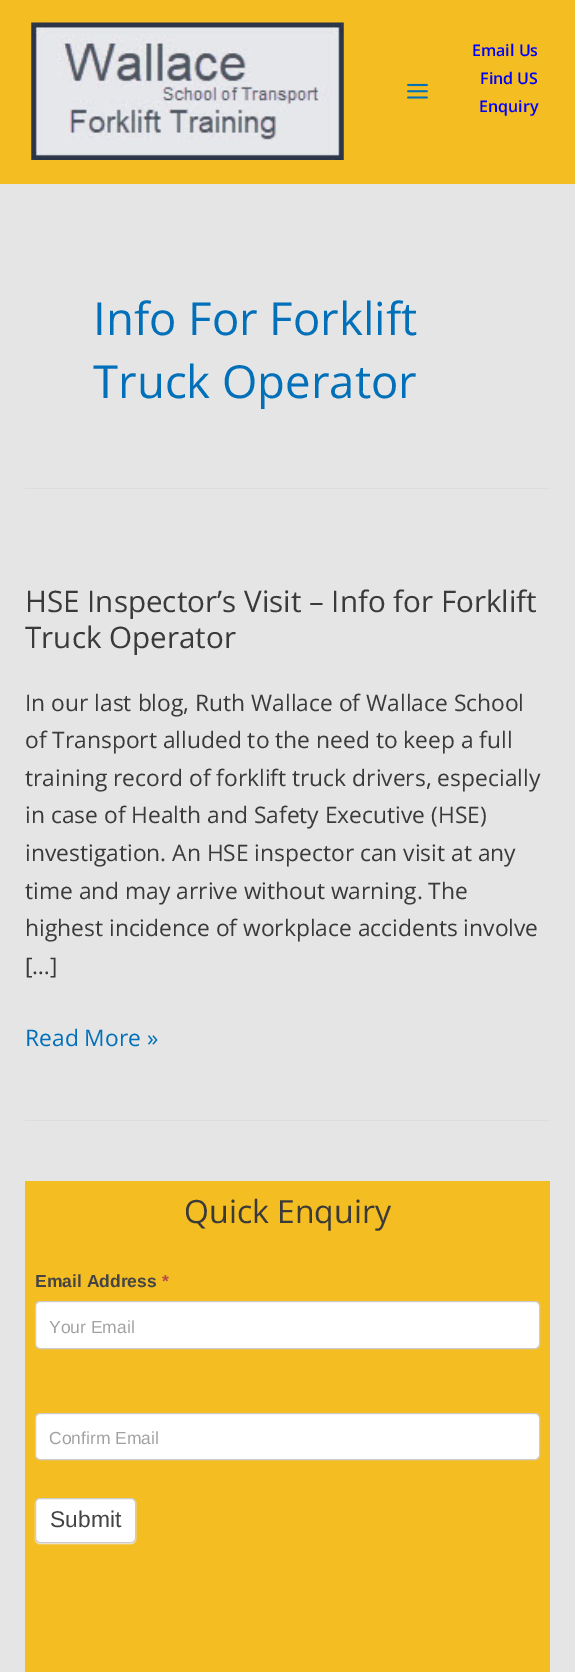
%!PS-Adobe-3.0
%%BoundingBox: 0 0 575 1672
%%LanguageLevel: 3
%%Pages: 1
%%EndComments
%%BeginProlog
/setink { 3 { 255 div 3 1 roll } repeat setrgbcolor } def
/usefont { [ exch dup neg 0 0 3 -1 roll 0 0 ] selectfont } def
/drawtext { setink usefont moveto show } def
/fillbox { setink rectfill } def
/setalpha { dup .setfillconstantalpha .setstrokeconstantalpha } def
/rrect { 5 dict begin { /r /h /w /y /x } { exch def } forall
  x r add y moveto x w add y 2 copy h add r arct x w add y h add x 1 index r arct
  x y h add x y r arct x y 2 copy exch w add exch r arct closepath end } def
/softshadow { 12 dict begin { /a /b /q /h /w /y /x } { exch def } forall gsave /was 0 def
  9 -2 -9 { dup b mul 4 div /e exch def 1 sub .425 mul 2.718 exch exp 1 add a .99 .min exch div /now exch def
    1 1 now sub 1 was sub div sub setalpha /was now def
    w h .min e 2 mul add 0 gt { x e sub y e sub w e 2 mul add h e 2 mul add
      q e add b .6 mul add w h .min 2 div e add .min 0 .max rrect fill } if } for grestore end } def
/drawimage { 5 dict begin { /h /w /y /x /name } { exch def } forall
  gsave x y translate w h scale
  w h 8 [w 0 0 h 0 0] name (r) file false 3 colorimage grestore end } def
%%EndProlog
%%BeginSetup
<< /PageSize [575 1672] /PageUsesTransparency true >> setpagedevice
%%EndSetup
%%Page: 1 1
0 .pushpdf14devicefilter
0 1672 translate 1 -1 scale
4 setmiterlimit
0 0 575 1672 229 229 229 fillbox
0 0 575 184 244 189 33 fillbox
(assets/img1.rgb) 31 22 313 138 drawimage
(assets/img2.rgb) 407 83 21 16 drawimage
(Email Us) 472 56 /OpenSans-SemiBold 16 0 2 252 drawtext
(Find US) 480 84 /OpenSans-SemiBold 16 0 2 252 drawtext
(Enquiry) 479 112 /OpenSans-SemiBold 16 0 2 252 drawtext
25 488 525 1 221 221 221 fillbox
(Info For Forklift) 93 335 /OpenSans-Regular 45.5 1 112 185 drawtext
(Truck Operator) 93 398 /OpenSans-Regular 45.5 1 112 185 drawtext
25 1120 525 1 221 221 221 fillbox
(HSE Inspector’s Visit – Info for Forklift) 25 612 /OpenSans-Regular 29.6 58 58 58 drawtext
(Truck Operator) 25 648 /OpenSans-Regular 29.6 58 58 58 drawtext
(In our last blog, Ruth Wallace of Wallace School) 25 711 /OpenSans-Regular 22.8 58 58 58 drawtext
(of Transport alluded to the need to keep a full) 25 748 /OpenSans-Regular 22.8 58 58 58 drawtext
(training record of forklift truck drivers, especially) 25 786 /OpenSans-Regular 22.8 58 58 58 drawtext
(in case of Health and Safety Executive \(HSE\)) 25 823 /OpenSans-Regular 22.8 58 58 58 drawtext
(investigation. An HSE inspector can visit at any) 25 861 /OpenSans-Regular 22.8 58 58 58 drawtext
(time and may arrive without warning. The) 25 899 /OpenSans-Regular 22.8 58 58 58 drawtext
(highest incidence of workplace accidents involve) 25 936 /OpenSans-Regular 22.8 58 58 58 drawtext
([…]) 25 974 /OpenSans-Regular 22.8 58 58 58 drawtext
(Read More ») 25 1046 /OpenSans-Regular 22.8 1 112 185 drawtext
25 1181 525 491 244 189 33 fillbox
(Quick Enquiry) 184 1223 /OpenSans-Regular 32 58 58 58 drawtext
(Email Address) 35 1287 /LiberationSans-Bold 17.5 68 68 68 drawtext
(*) 162 1287 /LiberationSans-Bold 17.5 185 74 72 drawtext
255 255 255 setink
35.5 1301.5 504 47 4.5 rrect gsave fill grestore
204 204 204 setink
stroke
(Your Email) 49 1333 /LiberationSans-Regular 17.5 161 161 161 drawtext
255 255 255 setink
35.5 1413.5 504 46 4.5 rrect gsave fill grestore
204 204 204 setink
stroke
(Confirm Email) 49 1444 /LiberationSans-Regular 17.5 161 161 161 drawtext
238 238 238 setink
35 1499 101 45 5 0.5 1 softshadow
255 255 255 setink
35.5 1498.5 100 44 4.5 rrect gsave fill grestore
204 204 204 setink
stroke
(Submit) 50 1527 /LiberationSans-Regular 22.8 68 68 68 drawtext
.poppdf14devicefilter showpage
%%EOF
